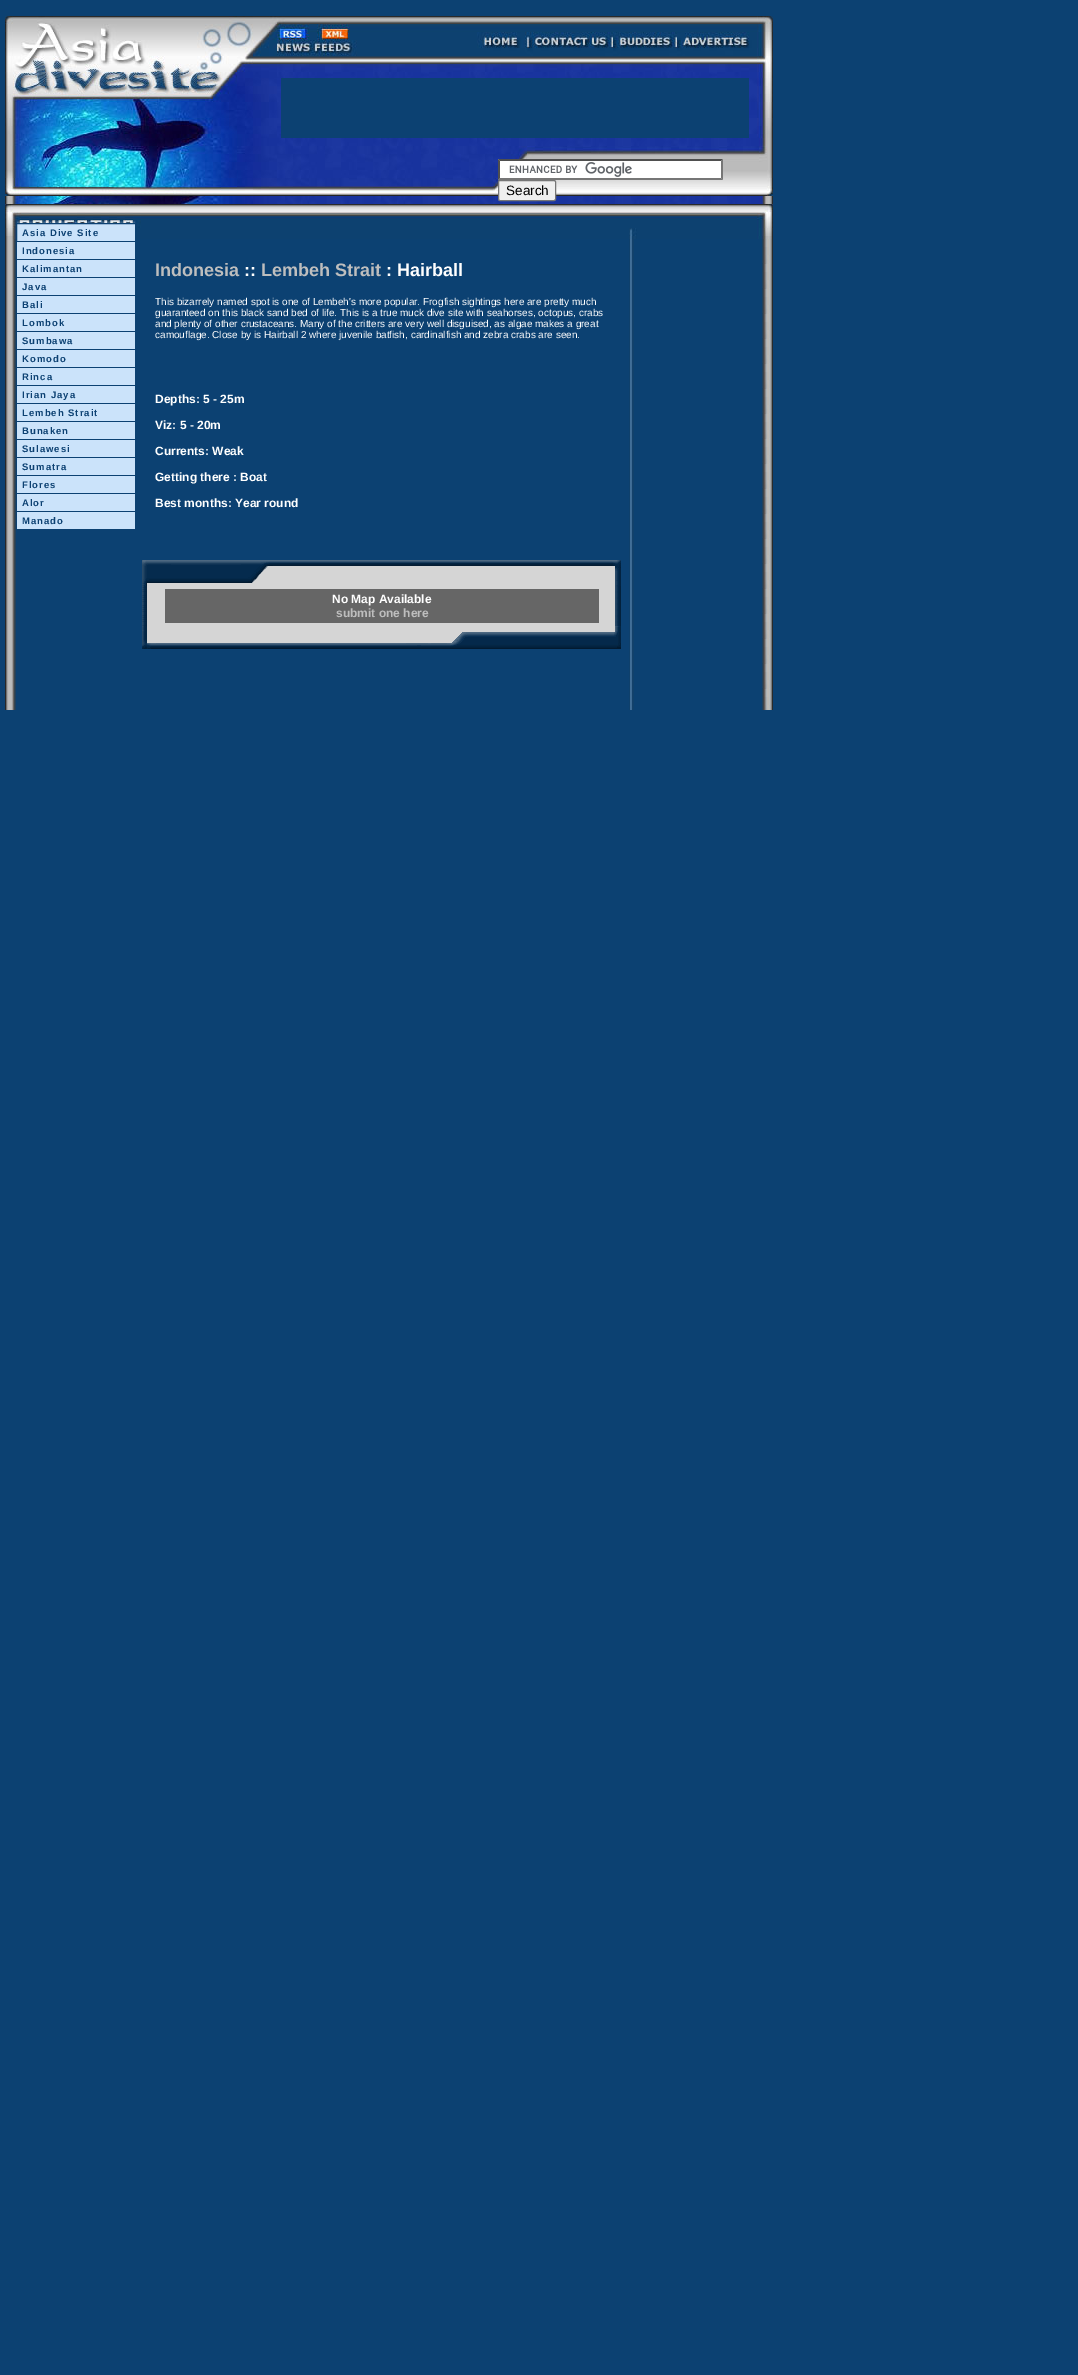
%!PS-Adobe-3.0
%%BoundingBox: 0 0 1078 2375
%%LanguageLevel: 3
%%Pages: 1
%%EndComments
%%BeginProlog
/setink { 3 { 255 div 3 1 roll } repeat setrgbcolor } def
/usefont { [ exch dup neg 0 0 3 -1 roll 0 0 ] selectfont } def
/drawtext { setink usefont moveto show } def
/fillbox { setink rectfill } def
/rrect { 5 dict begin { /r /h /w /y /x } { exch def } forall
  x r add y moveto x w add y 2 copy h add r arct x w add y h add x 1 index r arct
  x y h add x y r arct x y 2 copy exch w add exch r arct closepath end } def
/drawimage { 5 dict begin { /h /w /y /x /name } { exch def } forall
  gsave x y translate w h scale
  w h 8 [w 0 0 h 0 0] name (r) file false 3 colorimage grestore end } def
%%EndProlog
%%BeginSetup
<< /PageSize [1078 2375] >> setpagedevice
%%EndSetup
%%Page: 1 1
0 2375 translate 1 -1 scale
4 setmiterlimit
0 0 1078 2375 12 65 114 fillbox
(assets/img1.rgb) 5 16 768 62 drawimage
(assets/img2.rgb) 5 78 276 60 drawimage
(assets/img3.rgb) 749 78 24 60 drawimage
(assets/img4.rgb) 5 138 490 66 drawimage
(assets/img5.rgb) 495 138 278 66 drawimage
498 159 225 21 255 255 255 fillbox
(assets/img6.rgb) 509 162 123 15 drawimage
79 79 79 setink
498 159 moveto 723 159 lineto 721 161 lineto 500 161 lineto closepath fill
118 118 118 setink
723 159 moveto 723 180 lineto 721 178 lineto 721 161 lineto closepath fill
723 180 moveto 498 180 lineto 500 178 lineto 721 178 lineto closepath fill
79 79 79 setink
498 180 moveto 498 159 lineto 500 161 lineto 500 178 lineto closepath fill
239 239 239 setink
498.5 180.5 57 20 1.5 rrect gsave fill grestore
118 118 118 setink
stroke
(Search) 506 195 /LiberationSans-Regular 13.5 0 0 0 drawtext
(assets/img7.rgb) 5 204 768 35 drawimage
(assets/img8.rgb) 5 239 11 471 drawimage
203 227 250 setink
16.5 223.5 moveto 135.5 223.5 lineto 135.5 241.5 lineto 16.5 241.5 lineto closepath gsave fill grestore
12 65 114 setink
stroke
/LiberationSans-Bold 9.5 usefont
22 236 moveto 1 0 (Asia Dive Site) ashow
17 242 118 17 203 227 250 fillbox
12 65 114 setink
22 254 moveto 1 0 (Indonesia) ashow
17 260 118 17 203 227 250 fillbox
12 65 114 setink
22 272 moveto 1 0 (Kalimantan) ashow
17 278 118 17 203 227 250 fillbox
12 65 114 setink
22 290 moveto 1 0 (Java) ashow
17 296 118 17 203 227 250 fillbox
12 65 114 setink
22 308 moveto 1 0 (Bali) ashow
17 314 118 17 203 227 250 fillbox
12 65 114 setink
22 326 moveto 1 0 (Lombok) ashow
17 332 118 17 203 227 250 fillbox
12 65 114 setink
22 344 moveto 1 0 (Sumbawa) ashow
17 350 118 17 203 227 250 fillbox
12 65 114 setink
22 362 moveto 1 0 (Komodo) ashow
17 368 118 17 203 227 250 fillbox
12 65 114 setink
22 380 moveto 1 0 (Rinca) ashow
17 386 118 17 203 227 250 fillbox
12 65 114 setink
22 398 moveto 1 0 (Irian Jaya) ashow
17 404 118 17 203 227 250 fillbox
12 65 114 setink
22 416 moveto 1 0 (Lembeh Strait) ashow
17 422 118 17 203 227 250 fillbox
12 65 114 setink
22 434 moveto 1 0 (Bunaken) ashow
17 440 118 17 203 227 250 fillbox
12 65 114 setink
22 452 moveto 1 0 (Sulawesi) ashow
17 458 118 17 203 227 250 fillbox
12 65 114 setink
22 470 moveto 1 0 (Sumatra) ashow
17 476 118 17 203 227 250 fillbox
12 65 114 setink
22 488 moveto 1 0 (Flores) ashow
17 494 118 17 203 227 250 fillbox
12 65 114 setink
22 506 moveto 1 0 (Alor) ashow
17 512 118 17 203 227 250 fillbox
12 65 114 setink
22 524 moveto 1 0 (Manado) ashow
(Indonesia) 155 276 /LiberationSans-Bold 18 190 190 190 drawtext
(::) 244 276 /LiberationSans-Bold 18 255 255 255 drawtext
(Lembeh Strait) 261 276 /LiberationSans-Bold 18 190 190 190 drawtext
(: Hairball) 386 276 /LiberationSans-Bold 18 255 255 255 drawtext
(This bizarrely named spot is one of Lembeh's more popular. Frogfish sightings here are pretty much) 155 305 /LiberationSans-Regular 10 255 255 255 drawtext
(guaranteed on this black sand bed of life. This is a true muck dive site with seahorses, octopus, crabs) 155 316 /LiberationSans-Regular 10 255 255 255 drawtext
(and plenty of other crustaceans. Many of the critters are very well disguised, as algae makes a great) 155 327 /LiberationSans-Regular 10 255 255 255 drawtext
(camouflage. Close by is Hairball 2 where juvenile batfish, cardinalfish and zebra crabs are seen.) 155 338 /LiberationSans-Regular 10 255 255 255 drawtext
(Depths: 5 - 25m) 155 403 /LiberationSans-Bold 12 255 255 255 drawtext
(Viz: 5 - 20m) 155 429 /LiberationSans-Bold 12 255 255 255 drawtext
(Currents: Weak) 155 455 /LiberationSans-Bold 12 255 255 255 drawtext
(Getting there : Boat) 155 481 /LiberationSans-Bold 12 255 255 255 drawtext
(Best months: Year round) 155 507 /LiberationSans-Bold 12 255 255 255 drawtext
(assets/img9.rgb) 142 560 479 26 drawimage
(assets/img10.rgb) 142 586 8 40 drawimage
150 586 464 40 213 213 213 fillbox
165 589 434 34 102 102 102 fillbox
(No Map Available) 332 603 /LiberationSans-Bold 12 255 255 255 drawtext
(submit one here) 336 617 /LiberationSans-Bold 12 190 190 190 drawtext
(assets/img11.rgb) 614 586 7 40 drawimage
(assets/img12.rgb) 142 626 479 23 drawimage
(assets/img13.rgb) 629 239 5 471 drawimage
(assets/img14.rgb) 762 239 11 471 drawimage
showpage
%%EOF
